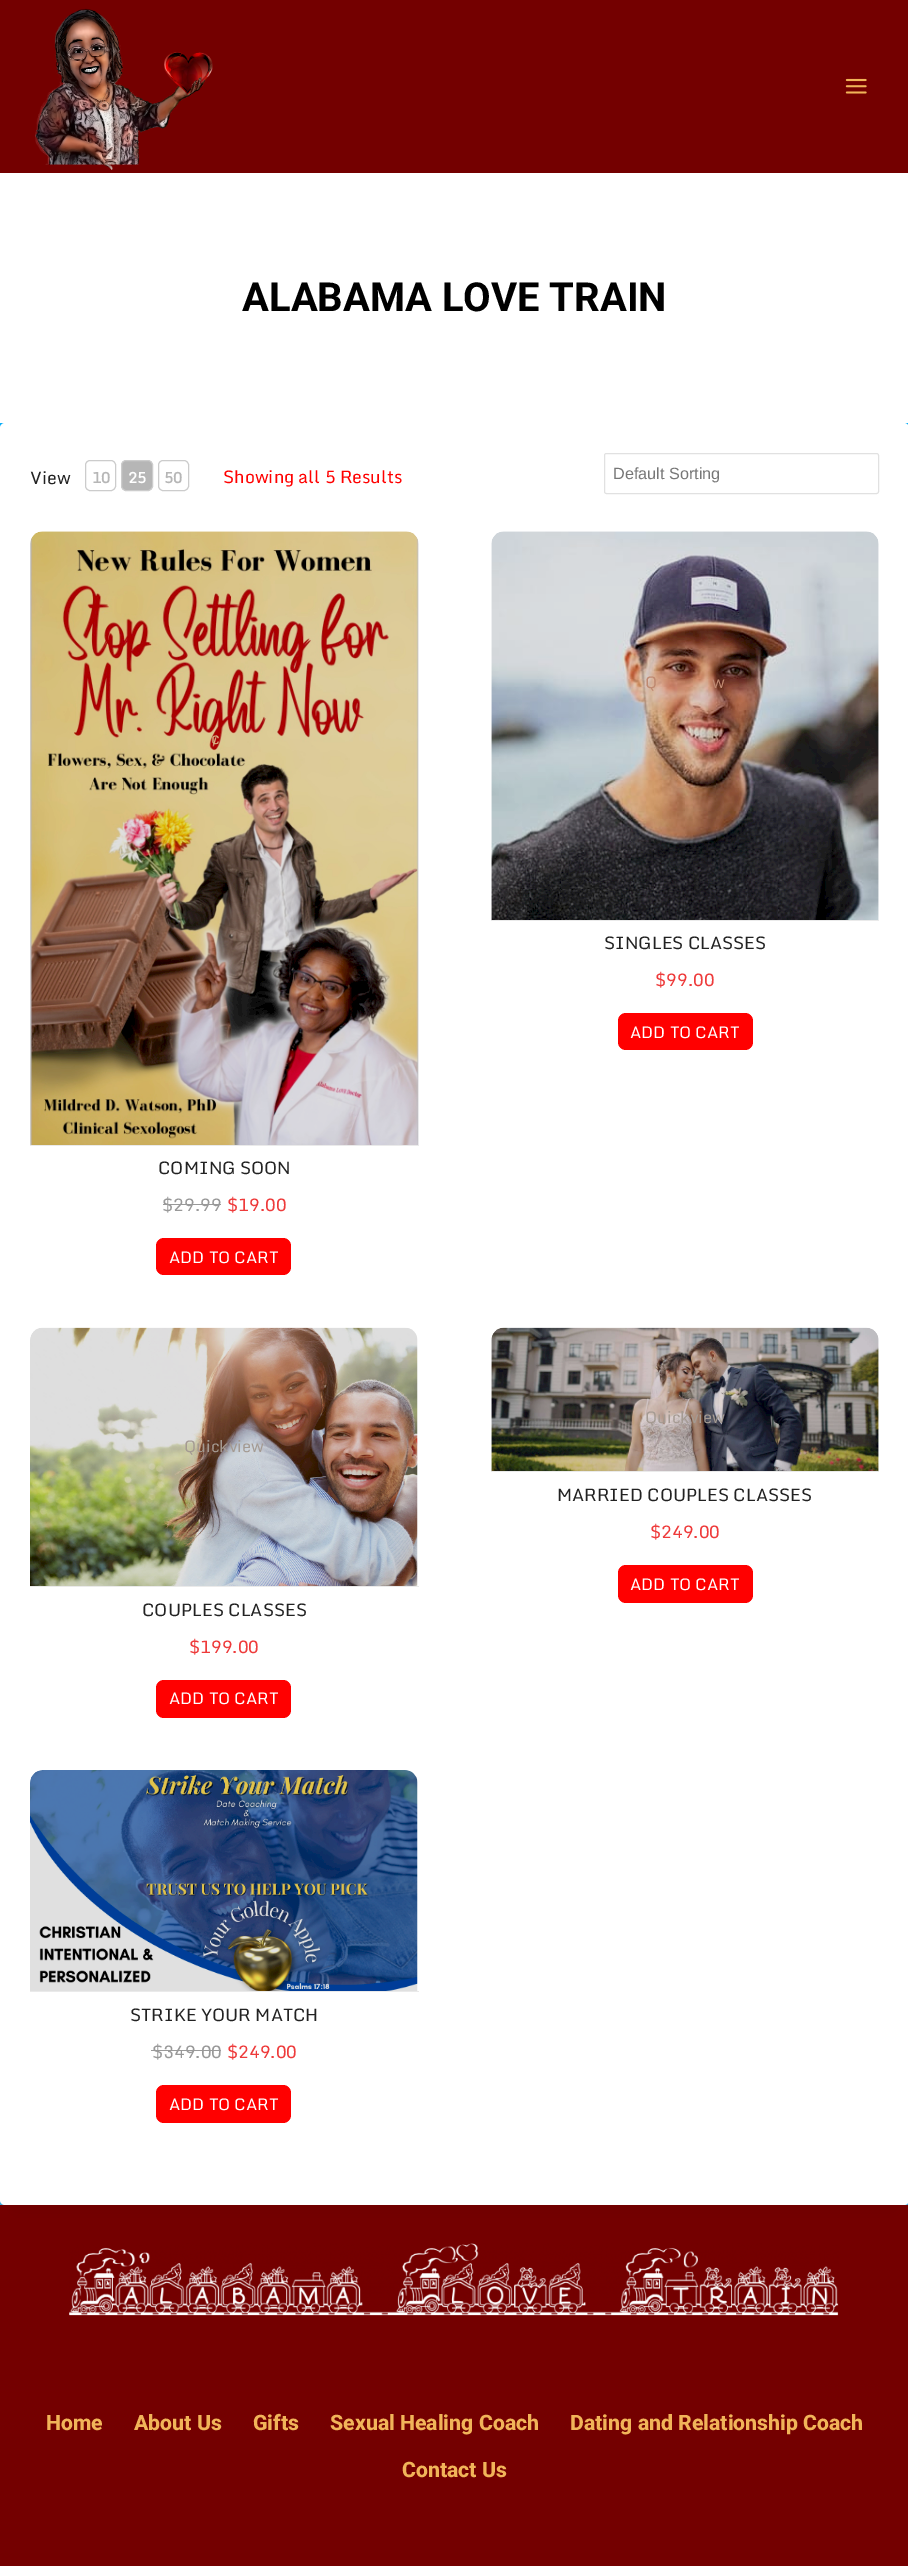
%!PS-Adobe-3.0
%%BoundingBox: 0 0 908 2566
%%LanguageLevel: 3
%%Pages: 1
%%EndComments
%%BeginProlog
/setink { 3 { 255 div 3 1 roll } repeat setrgbcolor } def
/usefont { [ exch dup neg 0 0 3 -1 roll 0 0 ] selectfont } def
/drawtext { setink usefont moveto show } def
/fillbox { setink rectfill } def
/setalpha { dup .setfillconstantalpha .setstrokeconstantalpha } def
/rrect { 5 dict begin { /r /h /w /y /x } { exch def } forall
  x r add y moveto x w add y 2 copy h add r arct x w add y h add x 1 index r arct
  x y h add x y r arct x y 2 copy exch w add exch r arct closepath end } def
/softshadow { 12 dict begin { /a /b /q /h /w /y /x } { exch def } forall gsave /was 0 def
  9 -2 -9 { dup b mul 4 div /e exch def 1 sub .425 mul 2.718 exch exp 1 add a .99 .min exch div /now exch def
    1 1 now sub 1 was sub div sub setalpha /was now def
    w h .min e 2 mul add 0 gt { x e sub y e sub w e 2 mul add h e 2 mul add
      q e add b .6 mul add w h .min 2 div e add .min 0 .max rrect fill } if } for grestore end } def
/drawimage { 5 dict begin { /h /w /y /x /name } { exch def } forall
  gsave x y translate w h scale
  w h 8 [w 0 0 h 0 0] name (r) file false 3 colorimage grestore end } def
%%EndProlog
%%BeginSetup
<< /PageSize [908 2566] /PageUsesTransparency true >> setpagedevice
%%EndSetup
%%Page: 1 1
0 .pushpdf14devicefilter
0 2566 translate 1 -1 scale
4 setmiterlimit
0 0 908 2566 255 255 255 fillbox
gsave 0 423 moveto 908 423 lineto 908 2205 lineto 0 2205 lineto closepath clip newpath
<< /ShadingType 2 /ColorSpace /DeviceRGB /Coords [454 0 454 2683] /Extend [true true] /Function << /FunctionType 2 /Domain [0 1] /C0 [0 0.686 1] /C1 [0.31 0.698 0.855] /N 1 >> >> shfill grestore
0 0 908 173 116 0 0 fillbox
(assets/img1.rgb) 35 8 178 162 drawimage
(assets/img2.rgb) 845 78 22 16 drawimage
(ALABAMA LOVE TRAIN) 242 311 /Roboto-Bold 40 0 0 0 drawtext
0 2205 908 361 116 0 0 fillbox
0 0 0 setink
13 454 883 1757 0 9.5 0.05 softshadow
255 255 255 setink
0 423 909 1782 5 rrect fill
(View) 30 484 /Monda-Regular 17.5 34 34 34 drawtext
204 204 204 setink
85.5 460.5 30 30 4.5 rrect stroke
(10) 92 483 /Monda-Bold 15 182 182 182 drawtext
121.5 460.5 31 30 4.5 rrect gsave fill grestore
204 204 204 setink
stroke
(25) 128 483 /Monda-Bold 15 255 255 255 drawtext
204 204 204 setink
158.5 460.5 30 30 4.5 rrect stroke
(50) 164 483 /Monda-Bold 15 182 182 182 drawtext
(Showing all 5 Results) 223 483 /Monda-Regular 17.5 255 0 0 drawtext
225 225 225 setink
604.5 453.5 274 40 2 rrect stroke
(Default Sorting) 613 479 /LiberationSans-Regular 16.25 119 119 119 drawtext
(assets/img3.rgb) 30 531 389 614 drawimage
(c) 211 744 /Monda-Regular 16.25 214 181 131 drawtext
30 1145 389 1 234 234 234 fillbox
(COMING SOON) 158 1174 /Monda-Regular 17.5 34 34 34 drawtext
($29.99) 162 1211 /Monda-Regular 17.5 153 153 153 drawtext
163 1204 58 1 153 153 153 fillbox
($19.00) 227 1211 /Monda-Regular 17.5 238 59 59 drawtext
255 0 0 setink
156 1238 135 37 8 rrect fill
(ADD TO CART) 169 1263 /Monda-Regular 16.25 255 255 255 drawtext
(assets/img4.rgb) 491 531 388 389 drawimage
(Q) 645 688 /Monda-Regular 16.25 191 137 113 drawtext
(w) 712 688 /Monda-Regular 16.25 191 137 113 drawtext
491 920 388 1 234 234 234 fillbox
(SINGLES CLASSES) 604 949 /Monda-Regular 17.5 34 34 34 drawtext
($99.00) 655 986 /Monda-Regular 17.5 238 59 59 drawtext
255 0 0 setink
618 1013 135 37 8 rrect fill
(ADD TO CART) 630 1038 /Monda-Regular 16.25 255 255 255 drawtext
(assets/img5.rgb) 30 1327 388 259 drawimage
(Quickview) 184 1452 /Monda-Regular 16.25 164 154 146 drawtext
30 1586 389 1 234 234 234 fillbox
(COUPLES CLASSES) 142 1616 /Monda-Regular 17.5 34 34 34 drawtext
($199.00) 189 1653 /Monda-Regular 17.5 238 59 59 drawtext
255 0 0 setink
156 1680 135 38 8 rrect fill
(ADD TO CART) 169 1704 /Monda-Regular 16.25 255 255 255 drawtext
(assets/img6.rgb) 491 1327 388 144 drawimage
(Quickview) 645 1423 /Monda-Regular 16.25 164 154 146 drawtext
491 1471 388 1 234 234 234 fillbox
(MARRIED COUPLES CLASSES) 557 1501 /Monda-Regular 17.5 34 34 34 drawtext
($249.00) 650 1538 /Monda-Regular 17.5 238 59 59 drawtext
255 0 0 setink
618 1565 135 38 8 rrect fill
(ADD TO CART) 630 1590 /Monda-Regular 16.25 255 255 255 drawtext
(assets/img7.rgb) 30 1770 388 221 drawimage
30 1991 389 1 234 234 234 fillbox
(STRIKE YOUR MATCH) 130 2021 /Monda-Regular 17.5 34 34 34 drawtext
($349.00) 152 2058 /Monda-Regular 17.5 153 153 153 drawtext
151 2050 70 1 153 153 153 fillbox
($249.00) 227 2058 /Monda-Regular 17.5 238 59 59 drawtext
255 0 0 setink
156 2085 135 38 8 rrect fill
(ADD TO CART) 169 2110 /Monda-Regular 16.25 255 255 255 drawtext
(assets/img8.rgb) 69 2243 770 73 drawimage
(Home) 46 2430 /Roboto-ExtraBold 21.25 241 180 89 drawtext
(About Us) 134 2430 /Roboto-ExtraBold 21.25 241 180 89 drawtext
(Gifts) 253 2430 /Roboto-ExtraBold 21.25 241 180 89 drawtext
(Sexual Healing Coach) 330 2430 /Roboto-ExtraBold 21.25 241 180 89 drawtext
(Dating and Relationship Coach) 570 2430 /Roboto-ExtraBold 21.25 241 180 89 drawtext
(Contact Us) 402 2477 /Roboto-ExtraBold 21.25 241 180 89 drawtext
.poppdf14devicefilter showpage
%%EOF
